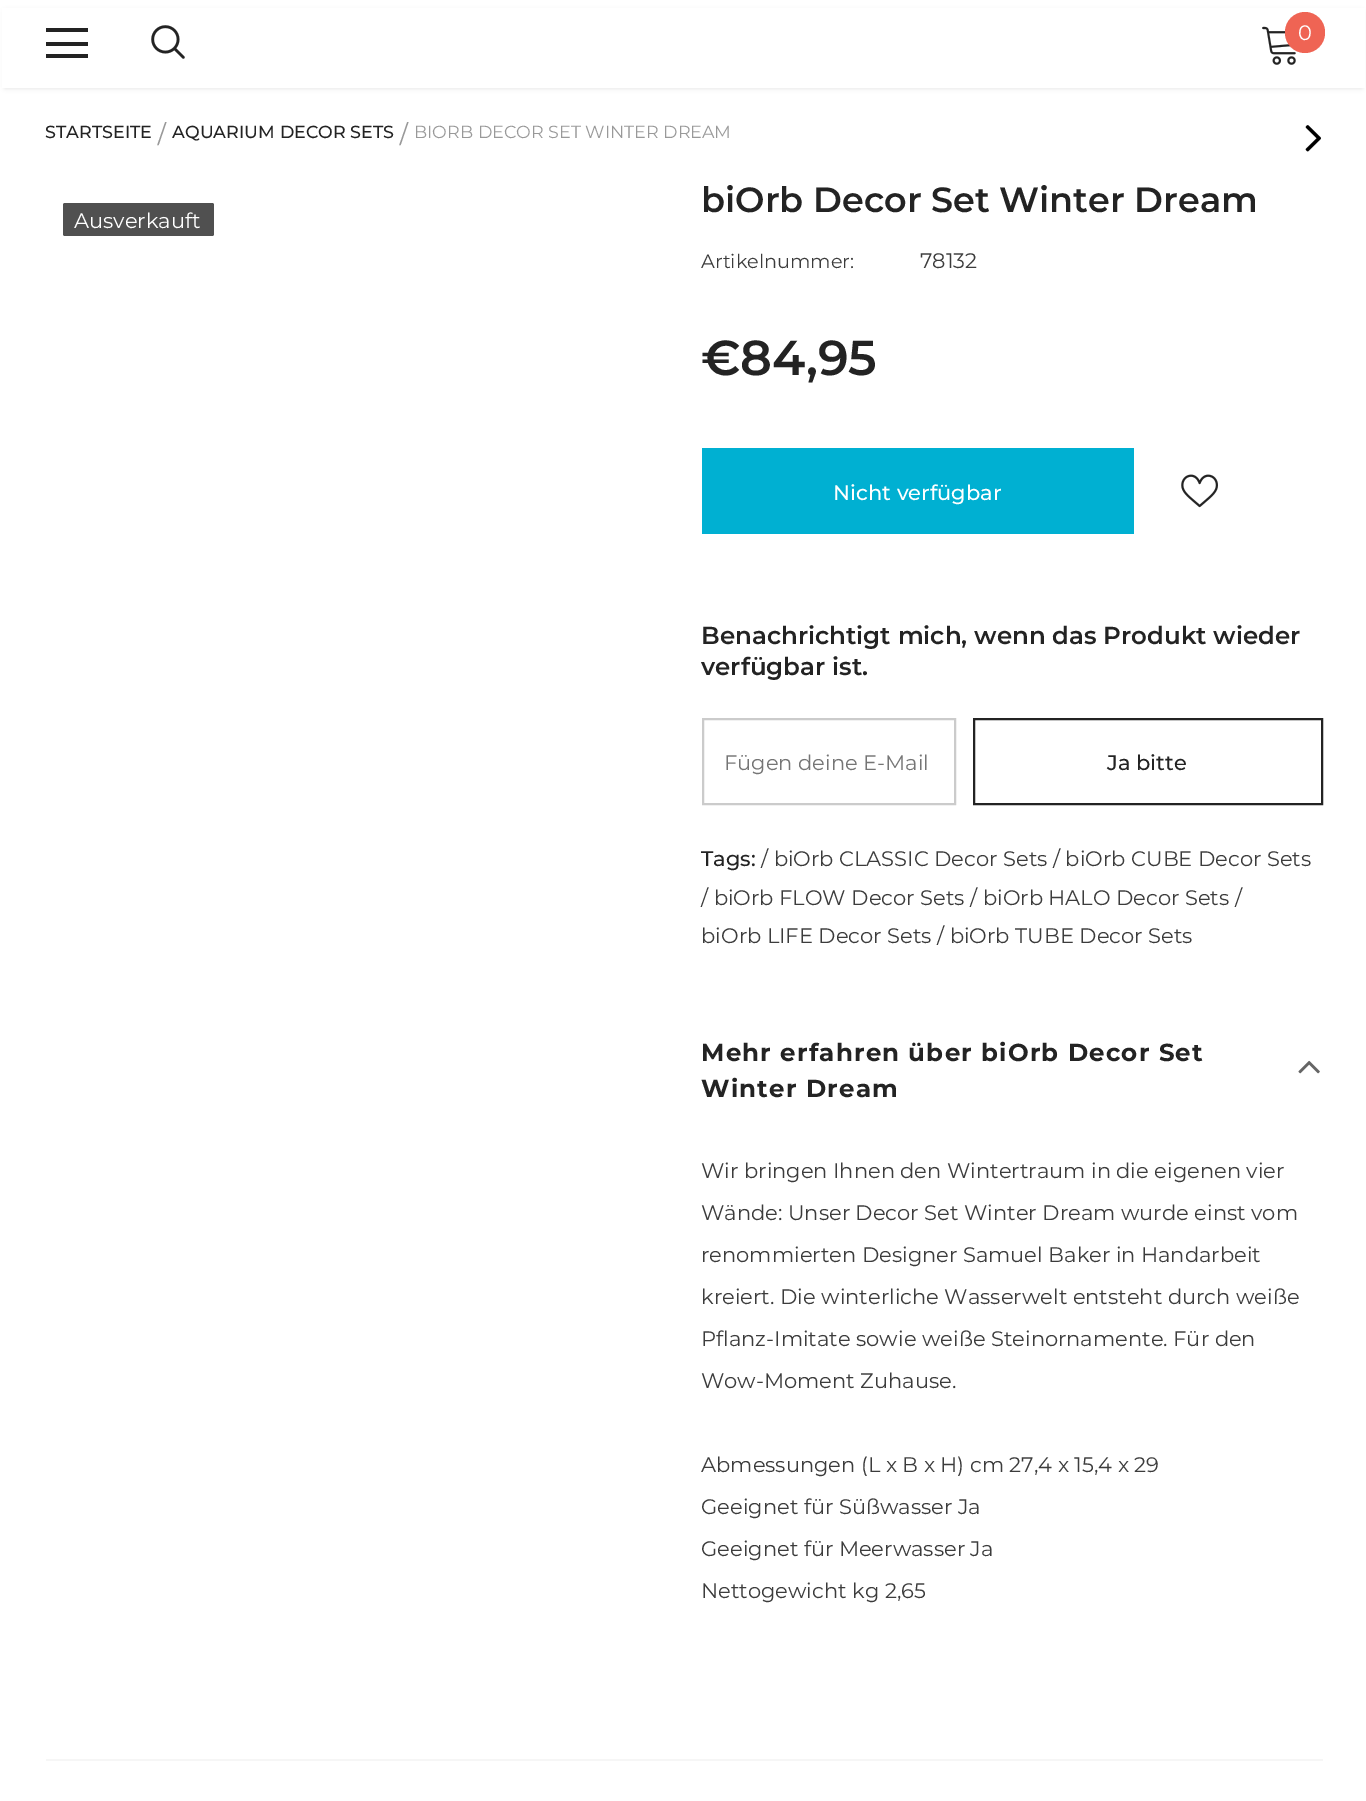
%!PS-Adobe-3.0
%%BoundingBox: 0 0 1366 1801
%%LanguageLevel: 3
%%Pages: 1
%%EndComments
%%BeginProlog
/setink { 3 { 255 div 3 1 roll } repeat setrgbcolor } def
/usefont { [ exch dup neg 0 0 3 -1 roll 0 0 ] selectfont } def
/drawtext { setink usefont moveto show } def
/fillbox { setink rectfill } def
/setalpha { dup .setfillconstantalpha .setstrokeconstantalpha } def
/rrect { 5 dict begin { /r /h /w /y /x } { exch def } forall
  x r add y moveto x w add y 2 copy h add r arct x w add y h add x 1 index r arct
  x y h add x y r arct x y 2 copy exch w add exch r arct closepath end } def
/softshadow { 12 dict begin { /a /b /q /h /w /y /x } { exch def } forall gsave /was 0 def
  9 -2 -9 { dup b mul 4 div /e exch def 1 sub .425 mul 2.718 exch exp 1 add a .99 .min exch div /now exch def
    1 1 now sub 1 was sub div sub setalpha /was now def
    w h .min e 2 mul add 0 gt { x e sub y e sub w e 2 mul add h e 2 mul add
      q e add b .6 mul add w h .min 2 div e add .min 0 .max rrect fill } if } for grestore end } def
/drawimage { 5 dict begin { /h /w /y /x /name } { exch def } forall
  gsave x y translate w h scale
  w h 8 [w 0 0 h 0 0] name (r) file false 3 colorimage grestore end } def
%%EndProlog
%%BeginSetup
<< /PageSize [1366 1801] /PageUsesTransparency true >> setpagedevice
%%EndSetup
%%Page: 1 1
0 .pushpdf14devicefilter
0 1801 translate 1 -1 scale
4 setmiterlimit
0 0 1366 1801 255 255 255 fillbox
0 0 0 setink
5 11 1357 77 0 2.5 0.12 softshadow
2 8 1363 80 255 255 255 fillbox
46 28 42 4 35 35 35 fillbox
46 42 42 4 35 35 35 fillbox
46 54 42 4 35 35 35 fillbox
(assets/img1.rgb) 151 25 34 34 drawimage
(assets/img2.rgb) 1262 26 34 39 drawimage
239 100 84 setink
1285 12 40 41 20 rrect fill
(0) 1298 40 /Montserrat-Regular 21 255 255 255 drawtext
(STARTSEITE) 45 138 /Montserrat-Medium 17.5 35 35 35 drawtext
(/) 157 145 /LiberationSerif-Regular 35 153 153 153 drawtext
(AQUARIUM DECOR SETS) 172 138 /Montserrat-Medium 17.5 35 35 35 drawtext
(/) 399 145 /LiberationSerif-Regular 35 153 153 153 drawtext
(BIORB DECOR SET WINTER DREAM) 414 138 /Montserrat-Regular 17.5 153 153 153 drawtext
(assets/img3.rgb) 1305 125 16 27 drawimage
80 80 80 setink
63 203 151 33 2 rrect fill
(Ausverkauft) 74 228 /Montserrat-Regular 21 255 255 255 drawtext
(biOrb Decor Set Winter Dream) 701 212 /Montserrat-SemiBold 35 35 35 35 drawtext
(Artikelnummer:) 701 268 /Montserrat-Regular 19.25 60 60 60 drawtext
(78132) 920 268 /Montserrat-Regular 21 60 60 60 drawtext
(€84,95) 701 375 /Montserrat-SemiBold 49 35 35 35 drawtext
702 448 432 86 0 176 210 fillbox
(Nicht verfügbar) 833 500 /Montserrat-Medium 21 255 255 255 drawtext
(assets/img4.rgb) 1181 474 37 34 drawimage
(Benachrichtigt mich, wenn das Produkt wieder) 701 644 /Montserrat-SemiBold 24.5 35 35 35 drawtext
(verfügbar ist.) 701 675 /Montserrat-SemiBold 24.5 35 35 35 drawtext
203 203 203 setink
2 setlinewidth
703 719 252 85 rectstroke
(Fügen deine E-Mail) 724 770 /Montserrat-Regular 21 117 117 117 drawtext
35 35 35 setink
974 719 348 85 rectstroke
(Ja bitte) 1107 770 /Montserrat-Medium 21 35 35 35 drawtext
(Tags:) 701 866 /Montserrat-Medium 21 35 35 35 drawtext
(/ biOrb CLASSIC Decor Sets / biOrb CUBE Decor Sets) 761 866 /Montserrat-Regular 21 60 60 60 drawtext
(/ biOrb FLOW Decor Sets / biOrb HALO Decor Sets /) 701 905 /Montserrat-Regular 21 60 60 60 drawtext
(biOrb LIFE Decor Sets / biOrb TUBE Decor Sets) 701 943 /Montserrat-Regular 21 60 60 60 drawtext
/Montserrat-Bold 24.5 usefont
35 35 35 setink
701 1061 moveto 1.2 0 (Mehr erfahren über biOrb Decor Set) ashow
(assets/img5.rgb) 1298 1060 22 14 drawimage
701 1097 moveto 1.2 0 (Winter Dream) ashow
(Wir bringen Ihnen den Wintertraum in die eigenen vier) 701 1178 /Montserrat-Regular 21 60 60 60 drawtext
(Wände: Unser Decor Set Winter Dream wurde einst vom) 701 1220 /Montserrat-Regular 21 60 60 60 drawtext
(renommierten Designer Samuel Baker in Handarbeit) 701 1262 /Montserrat-Regular 21 60 60 60 drawtext
(kreiert. Die winterliche Wasserwelt entsteht durch weiße) 701 1304 /Montserrat-Regular 21 60 60 60 drawtext
(Pflanz-Imitate sowie weiße Steinornamente. Für den) 701 1346 /Montserrat-Regular 21 60 60 60 drawtext
(Wow-Moment Zuhause.) 701 1388 /Montserrat-Regular 21 60 60 60 drawtext
(Abmessungen \(L x B x H\) cm 27,4 x 15,4 x 29) 701 1472 /Montserrat-Regular 21 60 60 60 drawtext
(Geeignet für Süßwasser Ja) 701 1514 /Montserrat-Regular 21 60 60 60 drawtext
(Geeignet für Meerwasser Ja) 701 1556 /Montserrat-Regular 21 60 60 60 drawtext
(Nettogewicht kg 2,65) 701 1598 /Montserrat-Regular 21 60 60 60 drawtext
46 1759 1277 2 246 246 246 fillbox
.poppdf14devicefilter showpage
%%EOF
